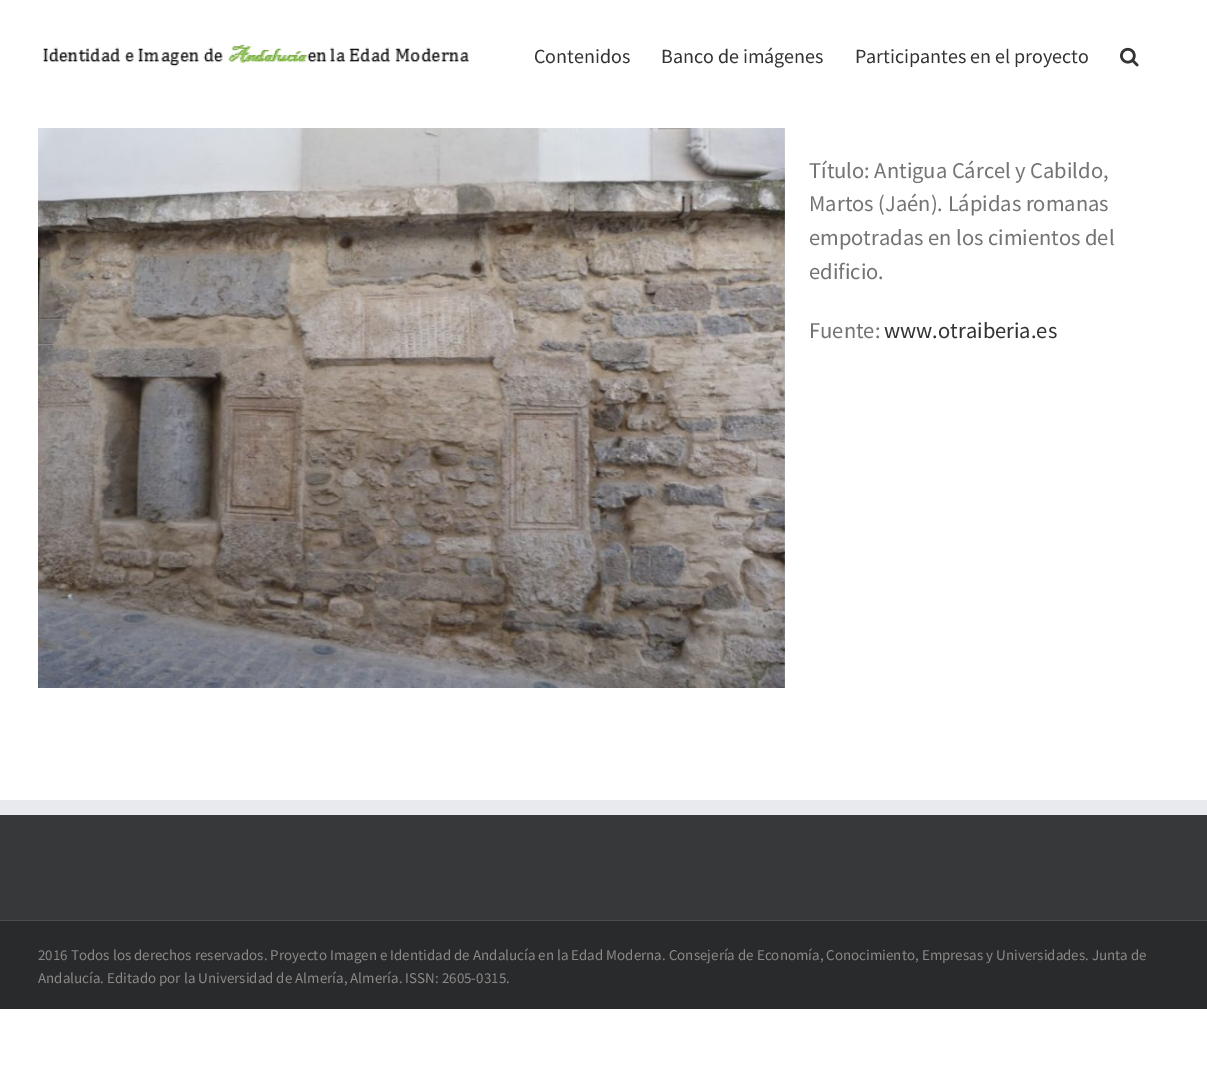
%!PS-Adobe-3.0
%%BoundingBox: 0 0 1207 1080
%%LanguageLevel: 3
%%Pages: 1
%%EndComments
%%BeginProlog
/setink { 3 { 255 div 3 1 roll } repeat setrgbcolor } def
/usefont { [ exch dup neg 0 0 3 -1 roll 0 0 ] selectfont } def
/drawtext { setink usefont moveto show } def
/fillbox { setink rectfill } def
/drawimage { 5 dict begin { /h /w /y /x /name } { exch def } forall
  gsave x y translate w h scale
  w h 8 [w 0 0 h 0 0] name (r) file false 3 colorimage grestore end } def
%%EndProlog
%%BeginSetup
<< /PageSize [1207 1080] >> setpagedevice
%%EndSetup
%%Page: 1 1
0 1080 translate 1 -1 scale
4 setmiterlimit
0 0 1207 1080 255 255 255 fillbox
(assets/img1.rgb) 43 44 426 23 drawimage
(Contenidos) 534 63 /SourceSansPro-Regular 20 51 51 51 drawtext
(Banco de imágenes) 661 63 /SourceSansPro-Regular 20 51 51 51 drawtext
(Participantes en el proyecto) 855 63 /SourceSansPro-Regular 20 51 51 51 drawtext
(assets/img2.rgb) 1120 47 19 20 drawimage
(assets/img3.rgb) 38 128 747 560 drawimage
(Título: Antigua Cárcel y Cabildo,) 809 178 /SourceSansPro-Regular 22.5 116 116 116 drawtext
(Martos \(Jaén\). Lápidas romanas) 809 211 /SourceSansPro-Regular 22.5 116 116 116 drawtext
(empotradas en los cimientos del) 809 245 /SourceSansPro-Regular 22.5 116 116 116 drawtext
(edificio.) 809 279 /SourceSansPro-Regular 22.5 116 116 116 drawtext
(Fuente:) 809 338 /SourceSansPro-Regular 22.5 116 116 116 drawtext
(www.otraiberia.es) 884 338 /SourceSansPro-Regular 22.5 51 51 51 drawtext
0 815 1207 105 54 56 57 fillbox
0 800 1207 15 233 234 238 fillbox
0 921 1207 88 40 42 43 fillbox
0 920 1207 1 75 76 77 fillbox
(2016 Todos los derechos reservados. Proyecto Imagen e Identidad de Andalucía en la Edad Moderna. Consejería de Economía, Conocimiento, Empresas y Universidades. Junta de) 38 960 /SourceSansPro-Regular 15 140 137 137 drawtext
(Andalucía. Editado por la Universidad de Almería, Almería. ISSN: 2605-0315.) 38 983 /SourceSansPro-Regular 15 140 137 137 drawtext
showpage
%%EOF
